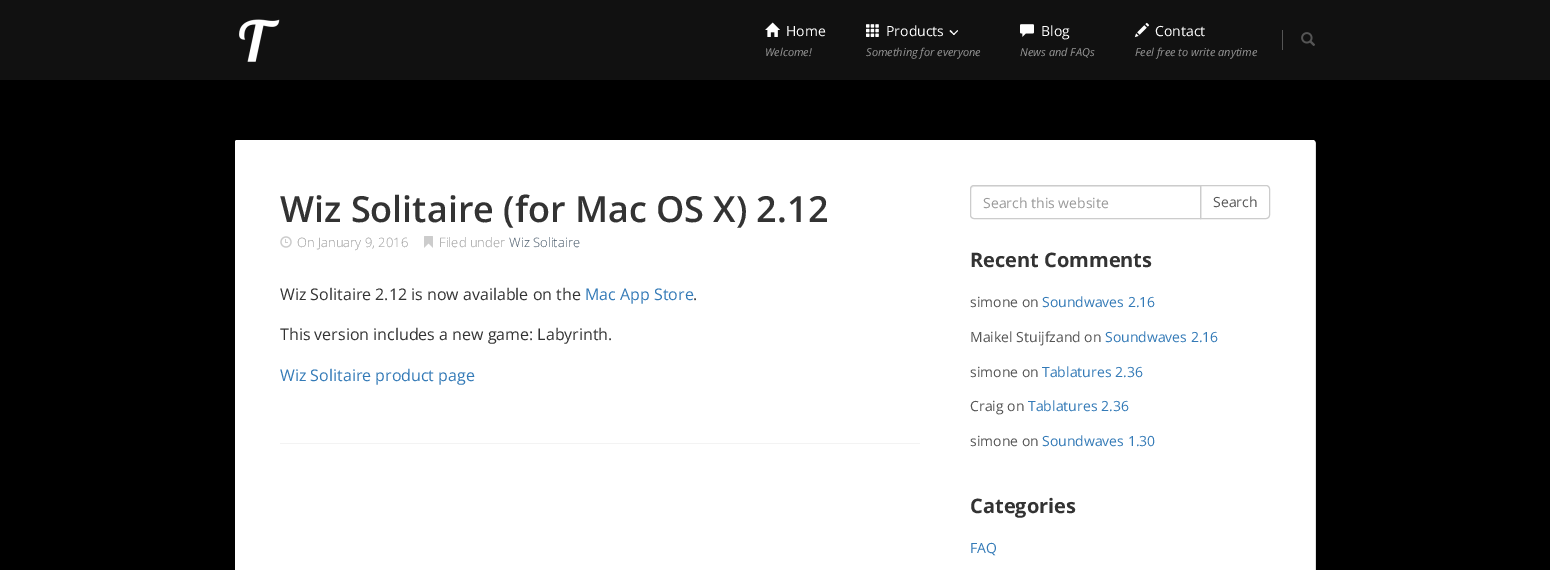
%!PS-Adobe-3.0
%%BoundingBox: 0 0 1550 570
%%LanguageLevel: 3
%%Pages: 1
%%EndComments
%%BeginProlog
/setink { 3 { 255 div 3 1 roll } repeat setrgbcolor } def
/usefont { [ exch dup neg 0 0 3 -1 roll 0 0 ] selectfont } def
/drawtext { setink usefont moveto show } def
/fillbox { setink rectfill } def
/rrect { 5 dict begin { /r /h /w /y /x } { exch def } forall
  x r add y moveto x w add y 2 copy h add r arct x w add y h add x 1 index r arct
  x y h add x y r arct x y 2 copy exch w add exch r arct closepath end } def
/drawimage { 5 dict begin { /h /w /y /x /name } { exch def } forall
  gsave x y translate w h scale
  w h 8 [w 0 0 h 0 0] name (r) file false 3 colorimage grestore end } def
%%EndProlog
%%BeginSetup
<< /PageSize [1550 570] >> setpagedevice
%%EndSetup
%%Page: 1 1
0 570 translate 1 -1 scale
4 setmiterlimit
0 0 1550 570 0 0 0 fillbox
0 0 1550 80 17 17 17 fillbox
(assets/img1.rgb) 239 19 41 43 drawimage
(assets/img2.rgb) 765 22 15 15 drawimage
(Home) 786 36 /OpenSans-Regular 14 255 255 255 drawtext
(Welcome!) 765 56 /OpenSans-Italic 11 153 153 153 drawtext
(assets/img3.rgb) 866 24 13 13 drawimage
(Products) 886 36 /OpenSans-Regular 14 255 255 255 drawtext
957.5 30 moveto 958 31 lineto 954 35 lineto 953 34.5 lineto closepath fill
950.5 30 moveto 954.5 34.5 lineto 954 35 lineto 949.5 31 lineto closepath fill
(Something for everyone) 866 56 /OpenSans-Italic 11 153 153 153 drawtext
(assets/img4.rgb) 1020 24 14 13 drawimage
(Blog) 1041 36 /OpenSans-Regular 14 255 255 255 drawtext
(News and FAQs) 1020 56 /OpenSans-Italic 11 153 153 153 drawtext
(assets/img5.rgb) 1134 22 16 16 drawimage
(Contact) 1155 36 /OpenSans-Regular 14 255 255 255 drawtext
(Feel free to write anytime) 1135 56 /OpenSans-Italic 11 153 153 153 drawtext
1282 30 1 20 85 85 85 fillbox
(assets/img6.rgb) 1301 32 14 14 drawimage
224 224 224 setink
236 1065 moveto 237 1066 lineto 776 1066 lineto 1314 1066 lineto 1316 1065 lineto 1316 143 lineto 1315 141 lineto 1315 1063 lineto 1315 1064 1314 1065 1313 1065 curveto closepath fill
255 255 255 setink
235 140 1080 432 2 rrect fill
280 443 640 1 243 243 243 fillbox
(Wiz Solitaire \(for Mac OS X\) 2.12) 280 222 /OpenSans-SemiBold 36 51 51 51 drawtext
(assets/img7.rgb) 280 236 12 12 drawimage
(On January 9, 2016) 297 247 /OpenSans-Light 13 153 153 153 drawtext
(assets/img8.rgb) 424 236 9 12 drawimage
(Filed under) 439 247 /OpenSans-Light 13 153 153 153 drawtext
(Wiz Solitaire) 509 247 /OpenSans-Light 13 68 85 102 drawtext
(Wiz Solitaire 2.12 is now available on the) 280 300 /OpenSans-Regular 16 51 51 51 drawtext
(Mac App Store) 585 300 /OpenSans-Regular 16 51 122 183 drawtext
(.) 693 300 /OpenSans-Regular 16 51 51 51 drawtext
(This version includes a new game: Labyrinth.) 280 340 /OpenSans-Regular 16 51 51 51 drawtext
(Wiz Solitaire product page) 280 381 /OpenSans-Regular 16 51 122 183 drawtext
204 204 204 setink
1200.5 185.5 moveto 1266 185.5 lineto 1268 185.5 1269.5 187 1269.5 189 curveto 1269.5 215 lineto 1269.5 217 1268 218.5 1266 218.5 curveto 1200.5 218.5 lineto closepath stroke
255 255 255 setink
974 185 moveto 1201 185 lineto 1201 219 lineto 974 219 lineto 972 219 970 217 970 215 curveto 970 189 lineto 970 187 972 185 974 185 curveto closepath fill
236 236 236 setink
974 187 moveto 1200 187 lineto 1200 186 lineto 974 186 lineto 972 186 971 188 971 190 curveto 971 188 972 187 974 187 curveto closepath fill
204 204 204 setink
974 185.5 moveto 1200.5 185.5 lineto 1200.5 218.5 lineto 974 218.5 lineto 972 218.5 970.5 217 970.5 215 curveto 970.5 189 lineto 970.5 187 972 185.5 974 185.5 curveto closepath stroke
(Search this website) 983 208 /OpenSans-Regular 14 153 153 153 drawtext
(Search) 1213 207 /OpenSans-Regular 14 85 85 85 drawtext
(Recent Comments) 970 267 /OpenSans-Bold 20 51 51 51 drawtext
(simone on) 970 307 /OpenSans-Regular 14 85 85 85 drawtext
(Soundwaves 2.16) 1042 307 /OpenSans-Regular 14 51 122 183 drawtext
(Maikel Stuijfzand on) 970 342 /OpenSans-Regular 14 85 85 85 drawtext
(Soundwaves 2.16) 1105 342 /OpenSans-Regular 14 51 122 183 drawtext
(simone on) 970 377 /OpenSans-Regular 14 85 85 85 drawtext
(Tablatures 2.36) 1042 377 /OpenSans-Regular 14 51 122 183 drawtext
(Craig on) 970 411 /OpenSans-Regular 14 85 85 85 drawtext
(Tablatures 2.36) 1028 411 /OpenSans-Regular 14 51 122 183 drawtext
(simone on) 970 446 /OpenSans-Regular 14 85 85 85 drawtext
(Soundwaves 1.30) 1042 446 /OpenSans-Regular 14 51 122 183 drawtext
(Categories) 970 513 /OpenSans-Bold 20 51 51 51 drawtext
(FAQ) 970 553 /OpenSans-Regular 14 51 122 183 drawtext
showpage
%%EOF
